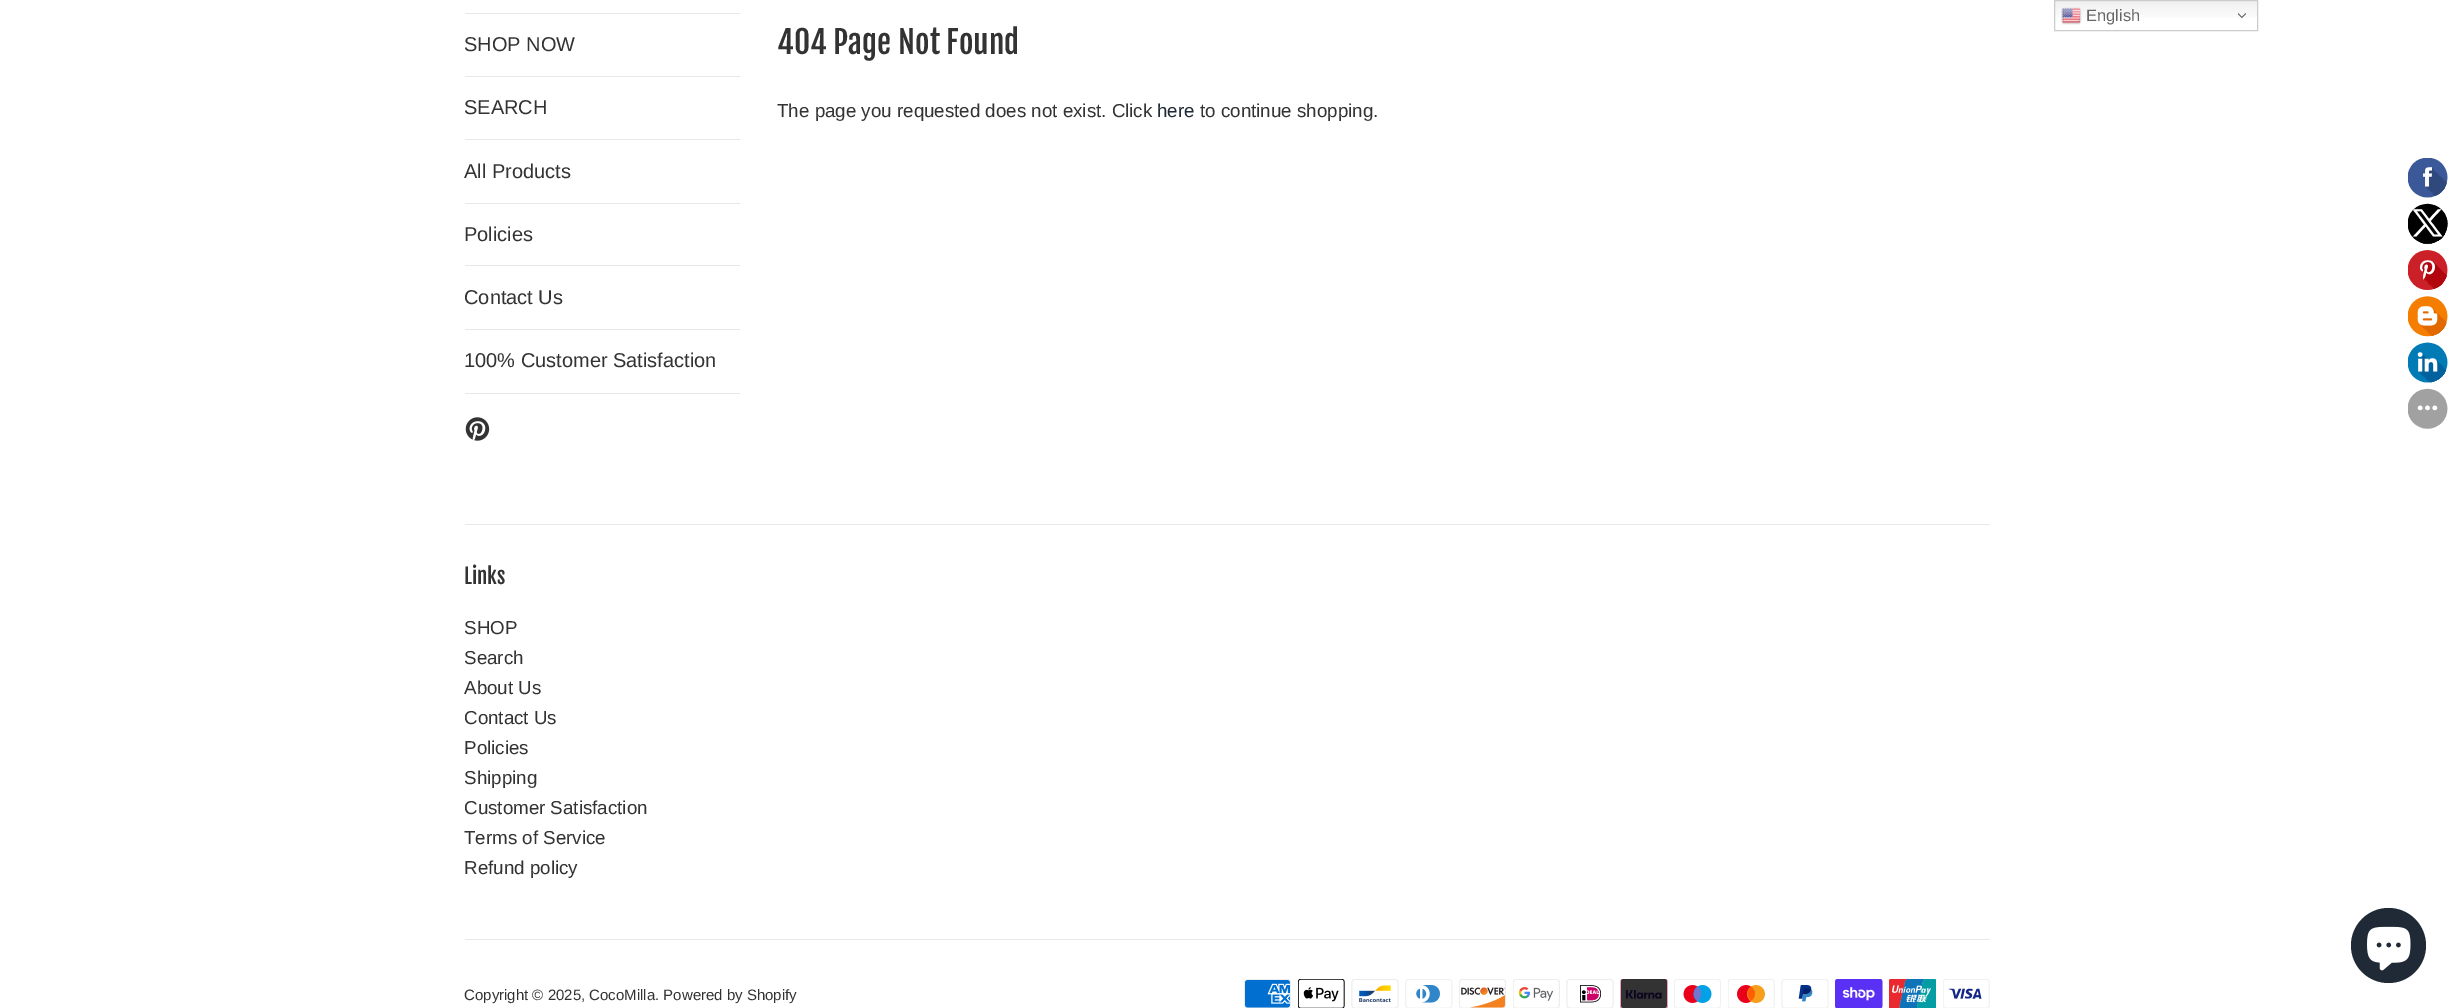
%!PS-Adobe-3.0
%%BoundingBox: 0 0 2453 1008
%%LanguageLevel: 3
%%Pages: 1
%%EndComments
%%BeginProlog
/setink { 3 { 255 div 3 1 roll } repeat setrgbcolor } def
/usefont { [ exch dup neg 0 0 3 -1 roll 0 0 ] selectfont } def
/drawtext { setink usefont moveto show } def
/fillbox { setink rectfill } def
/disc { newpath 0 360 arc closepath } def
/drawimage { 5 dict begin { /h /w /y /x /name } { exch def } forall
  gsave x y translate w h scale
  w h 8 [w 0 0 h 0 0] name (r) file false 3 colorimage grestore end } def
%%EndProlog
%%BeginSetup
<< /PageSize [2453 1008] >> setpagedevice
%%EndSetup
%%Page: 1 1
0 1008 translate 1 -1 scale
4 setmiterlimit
0 0 2453 1008 255 255 255 fillbox
gsave 2055 1 moveto 2257 1 lineto 2257 18 lineto 2055 18 lineto closepath clip newpath
<< /ShadingType 2 /ColorSpace /DeviceRGB /Coords [2156 0 2156 31] /Extend [true true] /Function << /FunctionType 3 /Domain [0 1] /Functions [<< /FunctionType 2 /Domain [0 1] /C0 [0.937 0.937 0.937] /C1 [1 1 1] /N 1 >> << /FunctionType 2 /Domain [0 1] /C0 [1 1 1] /C1 [1 1 1] /N 1 >>] /Bounds [0.7] /Encode [0 1 0 1] >> >> shfill grestore
204 204 204 setink
2054.5 0.5 203 30 rectstroke
(assets/img1.rgb) 2061 7 21 18 drawimage
(English) 2086 21 /LiberationSans-Regular 16.5 102 102 102 drawtext
(assets/img2.rgb) 2238 13 8 6 drawimage
465 13 275 1 232 232 232 fillbox
465 76 275 1 232 232 232 fillbox
(SHOP NOW) 464 51 /LiberationSans-Regular 20 51 51 51 drawtext
465 139 275 1 232 232 232 fillbox
(SEARCH) 464 114 /LiberationSans-Regular 20 51 51 51 drawtext
465 203 275 1 232 232 232 fillbox
(All Products) 464 178 /LiberationSans-Regular 20 51 51 51 drawtext
465 265 275 1 232 232 232 fillbox
(Policies) 464 241 /LiberationSans-Regular 20 51 51 51 drawtext
465 329 275 1 232 232 232 fillbox
(Contact Us) 464 304 /LiberationSans-Regular 20 51 51 51 drawtext
465 393 275 1 232 232 232 fillbox
(100% Customer Satisfaction) 464 367 /LiberationSans-Regular 20 51 51 51 drawtext
(assets/img3.rgb) 465 417 25 24 drawimage
(404 Page Not Found) 777 54 /FjallaOne-Regular 31.25 51 51 51 drawtext
(The page you requested does not exist. Click) 777 117 /LiberationSans-Regular 18.75 51 51 51 drawtext
(here) 1157 117 /LiberationSans-Regular 18.75 32 42 54 drawtext
(to continue shopping.) 1200 117 /LiberationSans-Regular 18.75 51 51 51 drawtext
465 524 1525 1 232 232 232 fillbox
(Links) 464 584 /FjallaOne-Regular 21 51 51 51 drawtext
(SHOP) 464 634 /LiberationSans-Regular 18.75 51 51 51 drawtext
(Search) 464 664 /LiberationSans-Regular 18.75 51 51 51 drawtext
(About Us) 464 694 /LiberationSans-Regular 18.75 51 51 51 drawtext
(Contact Us) 464 724 /LiberationSans-Regular 18.75 51 51 51 drawtext
(Policies) 464 754 /LiberationSans-Regular 18.75 51 51 51 drawtext
(Shipping) 464 784 /LiberationSans-Regular 18.75 51 51 51 drawtext
(Customer Satisfaction) 464 814 /LiberationSans-Regular 18.75 51 51 51 drawtext
(Terms of Service) 464 844 /LiberationSans-Regular 18.75 51 51 51 drawtext
(Refund policy) 464 874 /LiberationSans-Regular 18.75 51 51 51 drawtext
465 939 1525 1 232 232 232 fillbox
(Copyright © 2025, CocoMilla. Powered by Shopify) 464 1000 /LiberationSans-Regular 15 51 51 51 drawtext
(assets/img4.rgb) 1244 979 47 29 drawimage
(assets/img5.rgb) 1298 979 47 29 drawimage
(assets/img6.rgb) 1351 979 48 29 drawimage
(assets/img7.rgb) 1405 979 48 29 drawimage
(assets/img8.rgb) 1459 979 47 29 drawimage
(assets/img9.rgb) 1513 979 47 29 drawimage
(assets/img10.rgb) 1566 979 48 29 drawimage
(assets/img11.rgb) 1620 979 48 29 drawimage
(assets/img12.rgb) 1674 979 47 29 drawimage
(assets/img13.rgb) 1728 979 47 29 drawimage
(assets/img14.rgb) 1781 979 48 29 drawimage
(assets/img15.rgb) 1835 979 48 29 drawimage
(assets/img16.rgb) 1889 979 47 29 drawimage
(assets/img17.rgb) 1943 979 47 29 drawimage
(assets/img18.rgb) 2408 158 40 271 drawimage
32 42 54 setink
2388.5 945.5 37.5 disc fill
(assets/img19.rgb) 2367 926 44 45 drawimage
showpage
%%EOF
